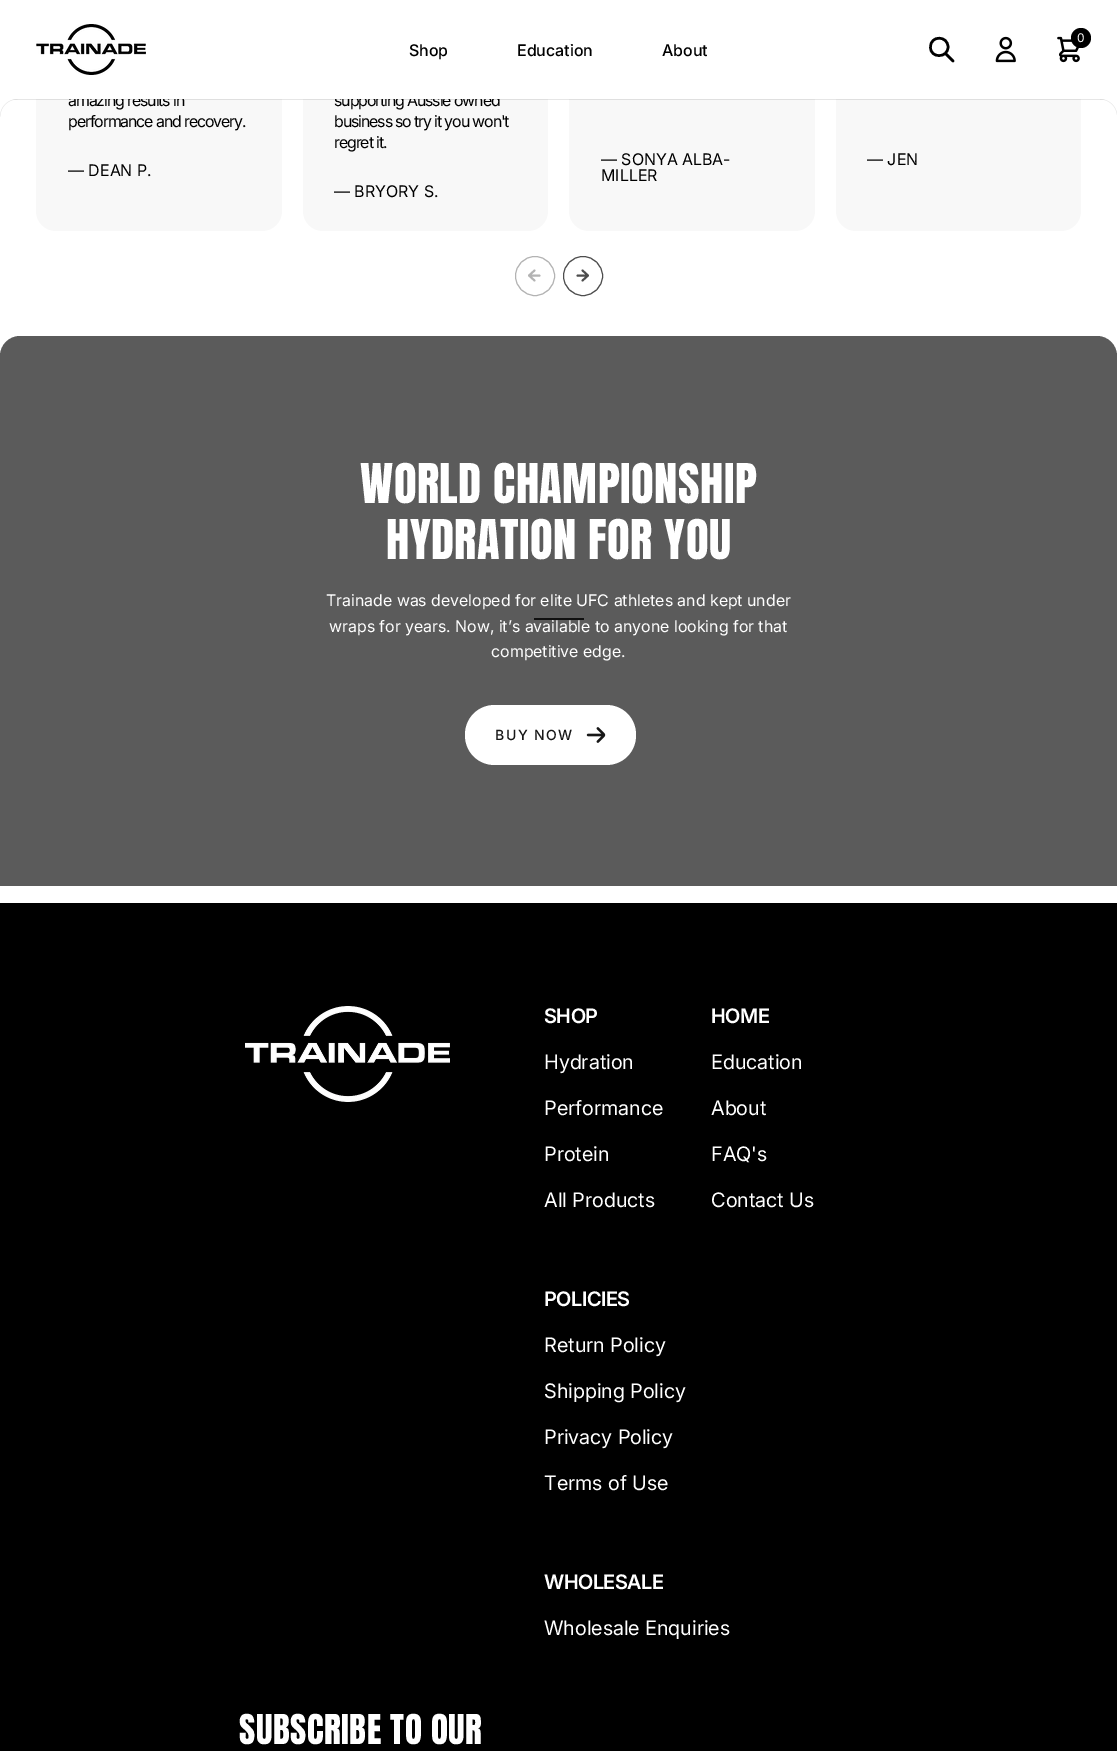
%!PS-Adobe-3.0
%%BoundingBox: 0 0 1117 1751
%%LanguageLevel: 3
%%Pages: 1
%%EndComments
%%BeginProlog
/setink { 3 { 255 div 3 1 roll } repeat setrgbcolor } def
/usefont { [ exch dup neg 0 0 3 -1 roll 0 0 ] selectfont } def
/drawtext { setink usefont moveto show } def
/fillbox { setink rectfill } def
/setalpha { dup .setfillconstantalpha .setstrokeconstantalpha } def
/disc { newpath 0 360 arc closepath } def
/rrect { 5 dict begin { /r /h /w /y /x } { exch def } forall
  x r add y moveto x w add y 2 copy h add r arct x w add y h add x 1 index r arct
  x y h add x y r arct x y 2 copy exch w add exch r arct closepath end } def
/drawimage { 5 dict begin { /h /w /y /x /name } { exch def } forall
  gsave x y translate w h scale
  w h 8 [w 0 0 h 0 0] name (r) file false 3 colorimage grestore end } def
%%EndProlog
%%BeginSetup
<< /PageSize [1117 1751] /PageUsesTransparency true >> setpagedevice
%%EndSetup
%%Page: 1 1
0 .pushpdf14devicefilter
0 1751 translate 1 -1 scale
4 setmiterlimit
0 0 1117 1751 255 255 255 fillbox
248 248 248 setink
36 -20 246 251 20 rrect fill
/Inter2-Regular 16 usefont
0 0 0 setink
68 106 moveto -1.1 0 (amazing results in) ashow
248 248 248 setink
303 -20 245 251 20 rrect fill
0 0 0 setink
334 106 moveto -1.1 0 (supporting Aussie owned) ashow
248 248 248 setink
569 -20 246 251 20 rrect fill
836 -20 245 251 20 rrect fill
36 0 1045 99 255 255 255 fillbox
(assets/img1.rgb) 36 24 110 51 drawimage
0 0 0 setink
2.5 setlinewidth
1 setlinecap
1 setlinejoin
953 61 moveto 945.5 53.5 lineto 948 47 moveto 948 58.5 930 58.5 930.5 47 curveto 930.5 35 948 35.5 948 47 curveto closepath stroke
(assets/img2.rgb) 995 36 21 27 drawimage
(assets/img3.rgb) 1057 36 23 27 drawimage
1081 38 10 disc fill
(0) 1077 42 /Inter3-Regular 12 255 255 255 drawtext
(Shop) 409 56 /Inter2-Medium 16 0 0 0 drawtext
(Education) 517 56 /Inter2-Medium 16 0 0 0 drawtext
(About) 662 56 /Inter2-Medium 16 0 0 0 drawtext
0.11 setalpha
12 99 1093 1 23 23 23 fillbox
1 setalpha
(assets/img4.rgb) 0 99 18 18 drawimage
(assets/img5.rgb) 1100 99 17 16 drawimage
/Inter2-Regular 16 usefont
0 0 0 setink
68 127 moveto -1.1 0 (performance and recovery.) ashow
(— DEAN P.) 68 176 /Inter2-Regular 16 0 0 0 drawtext
334 127 moveto -1.1 0 (business so try it you won't) ashow
334 148 moveto -1.1 0 (regret it.) ashow
(— BRYORY S.) 334 197 /Inter2-Regular 16 0 0 0 drawtext
(— SONYA ALBA-) 601 165 /Inter2-Regular 16 0 0 0 drawtext
(MILLER) 601 181 /Inter2-Regular 16 0 0 0 drawtext
(— JEN) 867 165 /Inter2-Regular 16 0 0 0 drawtext
179 179 179 setink
1 setlinewidth
0 setlinecap
0 setlinejoin
535 276 19.5 disc stroke
1.9 setlinewidth
1 setlinecap
1 setlinejoin
534.5 280.5 moveto 529 275.5 lineto 534.5 270.5 lineto 529 275.5 moveto 539.5 275.5 lineto stroke
77 77 77 setink
1 setlinewidth
0 setlinecap
0 setlinejoin
583 276 19.5 disc stroke
1.9 setlinewidth
1 setlinecap
1 setlinejoin
582.5 270.5 moveto 588 275.5 lineto 582.5 280.5 lineto 588 275.5 moveto 577.5 275.5 lineto stroke
250 250 250 setink
20 336 moveto 1097 336 lineto 1108 336 1117 345 1117 356 curveto 1117 886 lineto 0 886 lineto 0 356 lineto 0 345 9 336 20 336 curveto closepath fill
534 618 50 2 0 0 0 fillbox
0.7 setalpha
23 23 23 setink
20 336 moveto 1097 336 lineto 1108 336 1117 345 1117 356 curveto 1117 886 lineto 0 886 lineto 0 356 lineto 0 345 9 336 20 336 curveto closepath fill
/Anton-Regular 46.5 usefont
1 setalpha
255 255 255 setink
360 503 moveto 0.5 0 (WORLD CHAMPIONSHIP) ashow
386 559 moveto 0.5 0 (HYDRATION FOR YOU) ashow
(Trainade was developed for elite UFC athletes and kept under) 326 606 /Inter2-Regular 16 255 255 255 drawtext
(wraps for years. Now, it’s available to anyone looking for that) 329 632 /Inter2-Regular 16 255 255 255 drawtext
(competitive edge.) 491 657 /Inter2-Regular 16 255 255 255 drawtext
495 705 moveto 606 705 lineto 623 705 636 718 636 735 curveto 636 752 623 765 606 765 curveto 495 765 lineto 478 765 465 752 465 735 curveto 465 718 478 705 495 705 curveto closepath fill
/Inter-Medium 14 usefont
23 23 23 setink
495 740 moveto 1.5 0 (BUY NOW) ashow
(assets/img6.rgb) 586 727 20 16 drawimage
0 903 1117 848 0 0 0 fillbox
(assets/img7.rgb) 245 1006 205 96 drawimage
/Inter-SemiBold 20 usefont
255 255 255 setink
544 1023 moveto -0.5 0 (SHOP) ashow
(Hydration) 544 1069 /Inter-Regular 20 255 255 255 drawtext
(Performance) 544 1115 /Inter-Regular 20 255 255 255 drawtext
(Protein) 544 1161 /Inter-Regular 20 255 255 255 drawtext
(All Products) 544 1207 /Inter-Regular 20 255 255 255 drawtext
/Inter-SemiBold 20 usefont
711 1023 moveto -0.5 0 (HOME) ashow
(Education) 711 1069 /Inter-Regular 20 255 255 255 drawtext
(About) 711 1115 /Inter-Regular 20 255 255 255 drawtext
(FAQ's) 711 1161 /Inter-Regular 20 255 255 255 drawtext
(Contact Us) 711 1207 /Inter-Regular 20 255 255 255 drawtext
/Inter-SemiBold 20 usefont
544 1306 moveto -0.5 0 (POLICIES) ashow
(Return Policy) 544 1352 /Inter-Regular 20 255 255 255 drawtext
(Shipping Policy) 544 1398 /Inter-Regular 20 255 255 255 drawtext
(Privacy Policy) 544 1444 /Inter-Regular 20 255 255 255 drawtext
(Terms of Use) 544 1490 /Inter-Regular 20 255 255 255 drawtext
/Inter-SemiBold 20 usefont
544 1589 moveto -0.5 0 (WHOLESALE) ashow
(Wholesale Enquiries) 544 1635 /Inter-Regular 20 255 255 255 drawtext
/Anton-Regular 35 usefont
239 1744 moveto 0.5 0 (SUBSCRIBE TO OUR) ashow
.poppdf14devicefilter showpage
%%EOF
